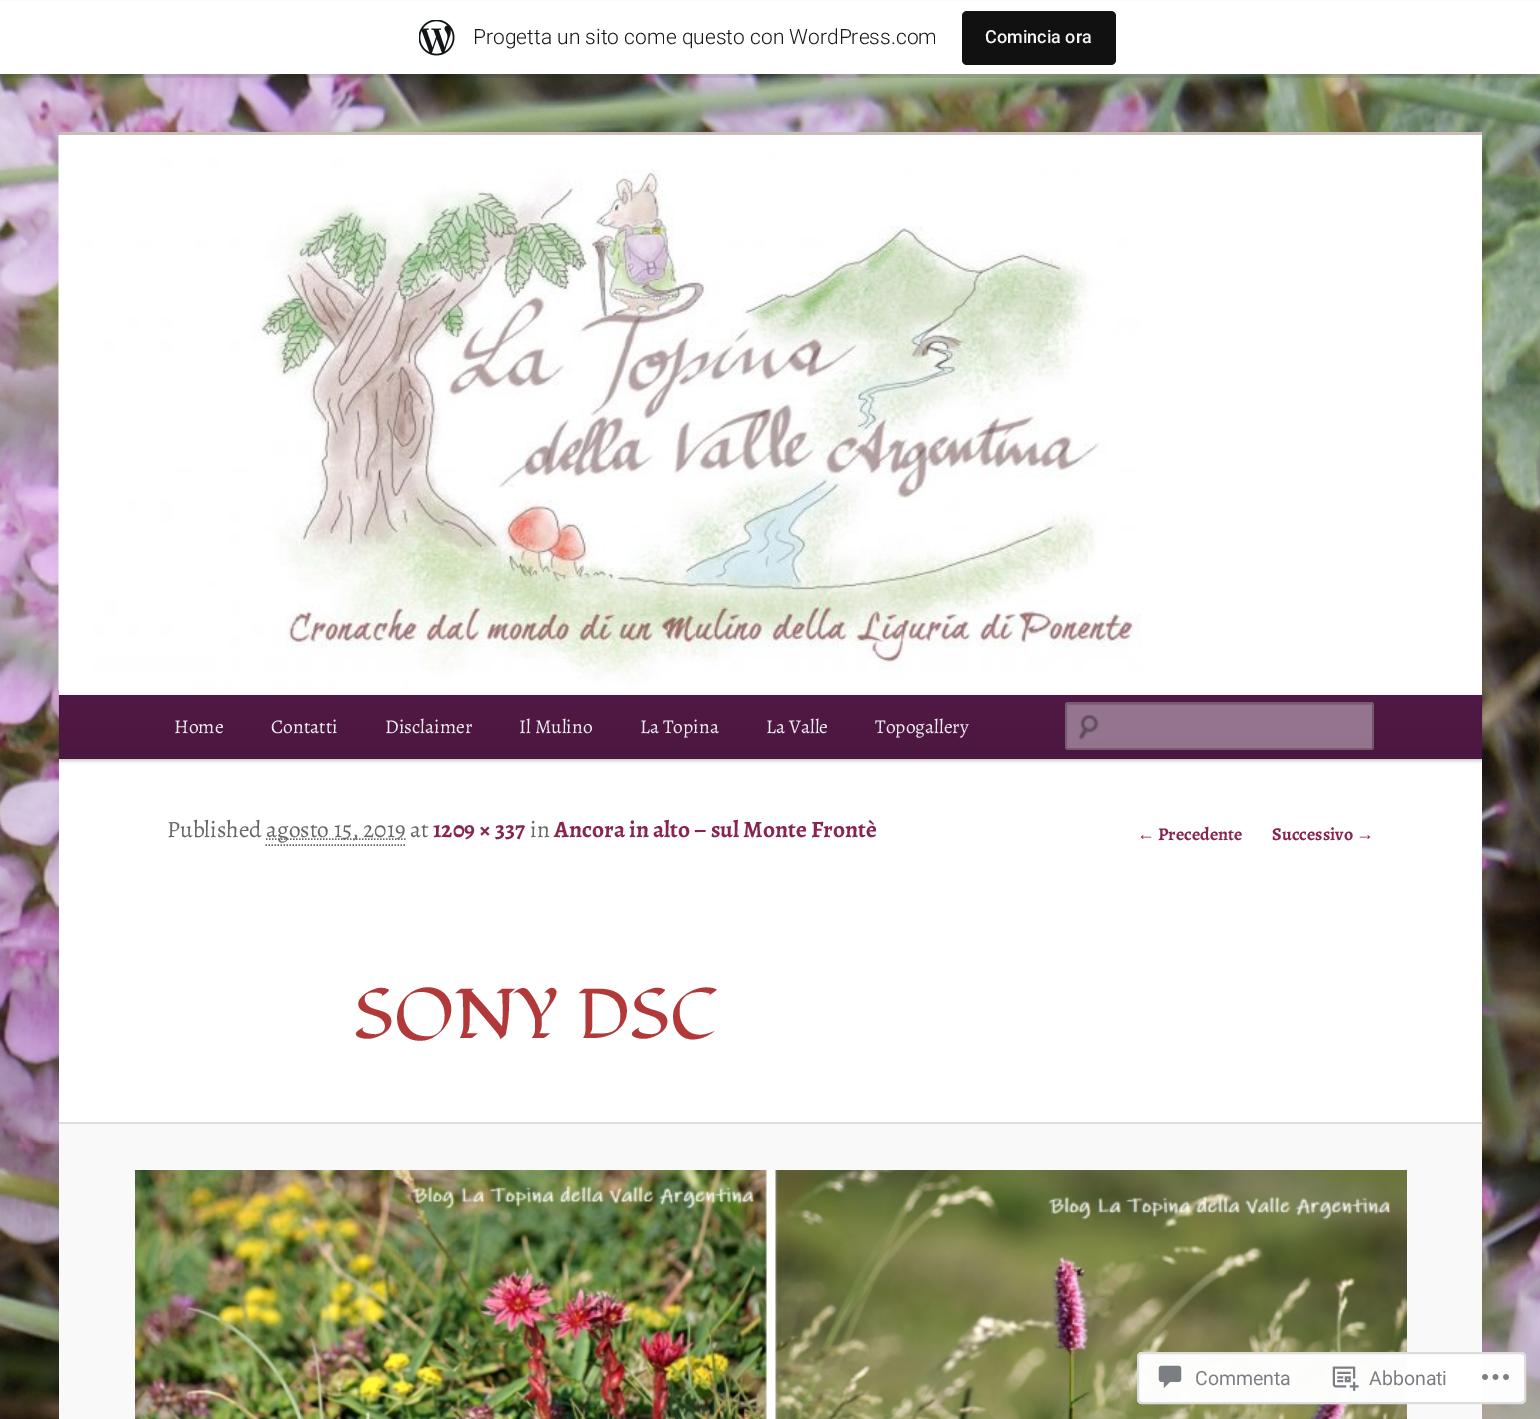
%!PS-Adobe-3.0
%%BoundingBox: 0 0 1540 1419
%%LanguageLevel: 3
%%Pages: 1
%%EndComments
%%BeginProlog
/setink { 3 { 255 div 3 1 roll } repeat setrgbcolor } def
/usefont { [ exch dup neg 0 0 3 -1 roll 0 0 ] selectfont } def
/drawtext { setink usefont moveto show } def
/fillbox { setink rectfill } def
/setalpha { dup .setfillconstantalpha .setstrokeconstantalpha } def
/rrect { 5 dict begin { /r /h /w /y /x } { exch def } forall
  x r add y moveto x w add y 2 copy h add r arct x w add y h add x 1 index r arct
  x y h add x y r arct x y 2 copy exch w add exch r arct closepath end } def
/softshadow { 12 dict begin { /a /b /q /h /w /y /x } { exch def } forall gsave /was 0 def
  9 -2 -9 { dup b mul 4 div /e exch def 1 sub .425 mul 2.718 exch exp 1 add a .99 .min exch div /now exch def
    1 1 now sub 1 was sub div sub setalpha /was now def
    w h .min e 2 mul add 0 gt { x e sub y e sub w e 2 mul add h e 2 mul add
      q e add b .6 mul add w h .min 2 div e add .min 0 .max rrect fill } if } for grestore end } def
/drawimage { 5 dict begin { /h /w /y /x /name } { exch def } forall
  gsave x y translate w h scale
  w h 8 [w 0 0 h 0 0] name (r) file false 3 colorimage grestore end } def
%%EndProlog
%%BeginSetup
<< /PageSize [1540 1419] /PageUsesTransparency true >> setpagedevice
%%EndSetup
%%Page: 1 1
0 .pushpdf14devicefilter
0 1419 translate 1 -1 scale
4 setmiterlimit
0 0 1540 1419 255 255 255 fillbox
(assets/img1.rgb) 0 74 1540 1345 drawimage
0 0 0 setink
0 2 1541 73 0 1.5 0.05 softshadow
0.08 setalpha
2 74 moveto 2 78 lineto 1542 78 lineto 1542 5 lineto 1540 5 lineto 1540 74 lineto closepath fill
1 setalpha
0 1 1540 73 255 255 255 fillbox
(assets/img2.rgb) 419 20 36 36 drawimage
(Progetta un sito come questo con WordPress.com) 473 44 /Roboto-Light 21 23 23 23 drawtext
17 17 17 setink
962 11 154 54 5 rrect fill
(Comincia ora) 985 43 /Roboto-Medium 18 246 247 247 drawtext
59 135 1423 987 255 255 255 fillbox
59 132 1423 3 202 189 184 fillbox
(assets/img3.rgb) 58 135 1083 555 drawimage
0 0 0 setink
59 696 1423 65 0 1.5 0.2 softshadow
gsave 59 695 moveto 1482 695 lineto 1482 759 lineto 59 759 lineto closepath clip newpath
<< /ShadingType 2 /ColorSpace /DeviceRGB /Coords [770 694 770 759] /Extend [true true] /Function << /FunctionType 2 /Domain [0 1] /C0 [0.318 0.098 0.275] /C1 [0.294 0.09 0.251] /N 1 >> >> shfill grestore
(Home) 174 733 /Alegreya-Regular 19.5 238 238 238 drawtext
(Contatti) 271 733 /Alegreya-Regular 19.5 238 238 238 drawtext
(Disclaimer) 385 733 /Alegreya-Regular 19.5 238 238 238 drawtext
(Il Mulino) 519 733 /Alegreya-Regular 19.5 238 238 238 drawtext
(La Topina) 640 733 /Alegreya-Regular 19.5 238 238 238 drawtext
(La Valle) 766 733 /Alegreya-Regular 19.5 238 238 238 drawtext
(Topogallery) 875 733 /Alegreya-Regular 19.5 238 238 238 drawtext
0.4 setalpha
255 255 255 setink
1065 702 309 48 3 rrect fill
1 setalpha
(assets/img4.rgb) 1078 714 21 26 drawimage
135 105 129 setink
1068 705 moveto 1371 705 lineto 1372 705 1372 706 1372 706 curveto 1372 749 lineto 1373 749 1373 748 1373 748 curveto 1373 706 lineto 1373 705 1372 704 1372 704 curveto 1068 704 lineto 1068 704 1067 705 1067 705 curveto closepath fill
0.2 setalpha
0 0 0 setink
2 setlinewidth
1066 703 307 46 2 rrect stroke
1 setalpha
(Published) 167 837 /Alegreya-Regular 23.4 102 102 102 drawtext
1.5 setlinewidth
[1.5 1.5] 0 setdash
266 839 moveto 405.5 839 lineto stroke
(agosto 15, 2019 at) 266 837 /Alegreya-Regular 23.4 102 102 102 drawtext
265.5 845 moveto 405 845 lineto stroke
(1209 × 337) 433 837 /Alegreya-Bold 23.4 136 36 81 drawtext
(in) 530 837 /Alegreya-Regular 23.4 102 102 102 drawtext
(Ancora in alto – sul Monte Frontè) 554 837 /Alegreya-Bold 23.4 136 36 81 drawtext
(SONY DSC) 354 1038 /Fondamento-Regular 70.25 177 57 57 drawtext
59 1124 1423 295 249 249 249 fillbox
59 1122 1423 2 221 221 221 fillbox
(assets/img5.rgb) 135 1170 1272 249 drawimage
(←) 1137 840 /LiberationSerif-Bold 18 136 36 81 drawtext
(Precedente) 1158 840 /Alegreya-Bold 18 136 36 81 drawtext
(Successivo) 1272 840 /Alegreya-Bold 18 136 36 81 drawtext
(→) 1356 840 /LiberationSerif-Bold 18 136 36 81 drawtext
0.98 setalpha
255 255 255 setink
1137 1352 389 52 5 rrect fill
220 220 222 setink
2 setlinewidth
[] 0 setdash
1138 1353 387 50 4 rrect stroke
1 setalpha
(assets/img6.rgb) 1158 1365 24 24 drawimage
(Commenta) 1195 1385 /Roboto-Regular 19.5 123 127 132 drawtext
(assets/img7.rgb) 1332 1366 27 25 drawimage
(Abbonati) 1369 1385 /Roboto-Regular 19.5 123 127 132 drawtext
(assets/img8.rgb) 1482 1374 27 6 drawimage
.poppdf14devicefilter showpage
%%EOF
